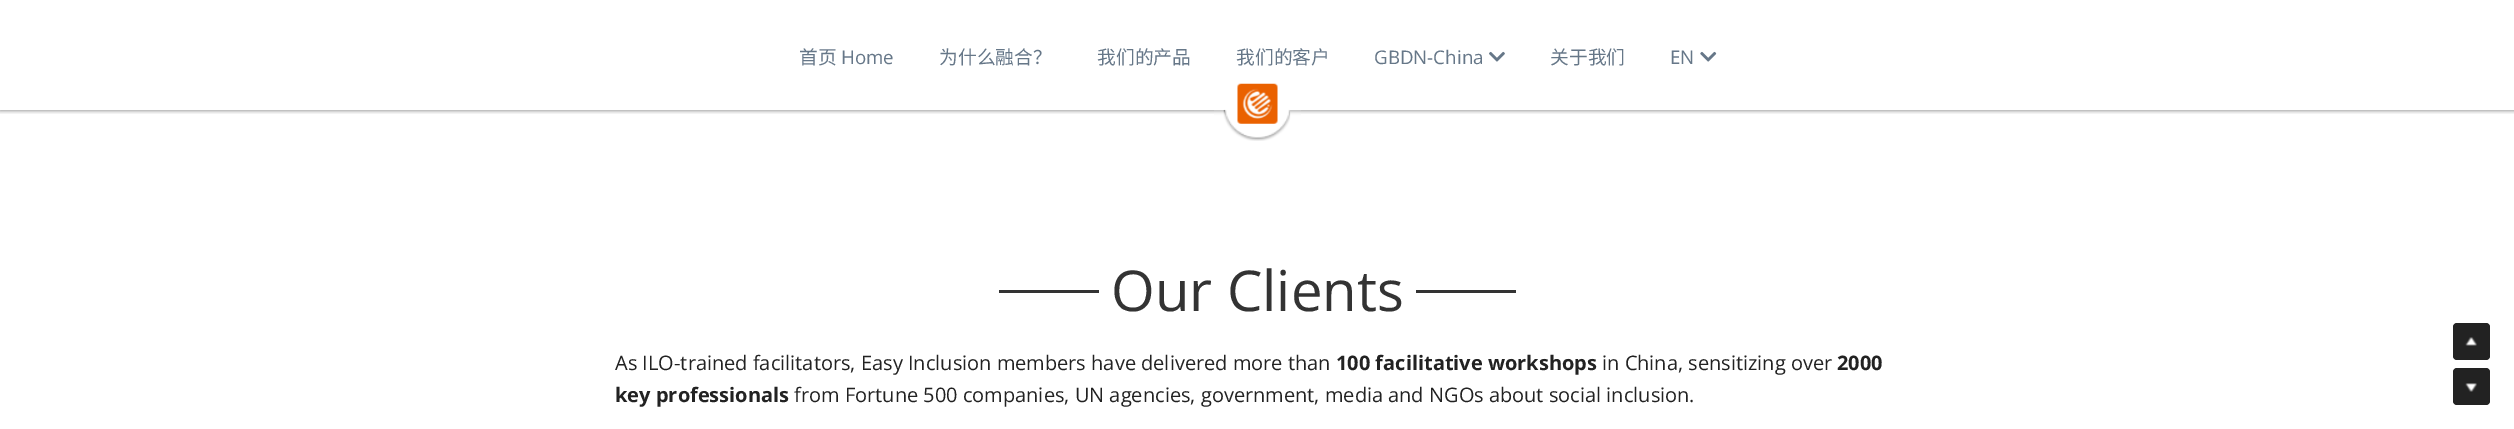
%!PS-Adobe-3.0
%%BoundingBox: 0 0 2514 429
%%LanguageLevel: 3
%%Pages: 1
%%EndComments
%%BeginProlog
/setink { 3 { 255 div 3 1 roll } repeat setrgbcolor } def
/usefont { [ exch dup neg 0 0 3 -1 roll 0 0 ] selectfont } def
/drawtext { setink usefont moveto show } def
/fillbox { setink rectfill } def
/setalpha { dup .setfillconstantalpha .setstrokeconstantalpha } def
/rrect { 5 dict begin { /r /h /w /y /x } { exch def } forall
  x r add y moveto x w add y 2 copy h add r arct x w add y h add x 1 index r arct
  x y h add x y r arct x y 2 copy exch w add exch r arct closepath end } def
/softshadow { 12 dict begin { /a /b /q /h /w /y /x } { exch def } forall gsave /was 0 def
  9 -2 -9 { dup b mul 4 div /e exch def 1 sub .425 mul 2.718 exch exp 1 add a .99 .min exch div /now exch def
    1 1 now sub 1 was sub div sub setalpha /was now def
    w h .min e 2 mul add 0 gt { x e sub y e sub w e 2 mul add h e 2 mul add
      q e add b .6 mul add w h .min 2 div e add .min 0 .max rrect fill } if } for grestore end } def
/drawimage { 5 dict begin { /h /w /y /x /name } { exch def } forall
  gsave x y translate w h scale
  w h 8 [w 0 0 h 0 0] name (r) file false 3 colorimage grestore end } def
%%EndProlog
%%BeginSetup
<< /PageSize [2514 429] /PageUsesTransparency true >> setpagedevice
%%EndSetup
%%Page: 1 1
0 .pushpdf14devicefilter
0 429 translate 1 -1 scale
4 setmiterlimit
0 0 2514 429 255 255 255 fillbox
gsave
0 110 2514 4 rectclip
0 0 0 setink
0 1 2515 110 0 2 0.4 softshadow
grestore
(首页) 799 64 /NotoSansCJKSC-Regular 18.75 102 119 136 drawtext
(Home) 841 64 /OpenSans-Regular 18.75 102 119 136 drawtext
(为什么融合？) 939 64 /NotoSansCJKSC-Regular 18.75 102 119 136 drawtext
(我们的产品) 1097 64 /NotoSansCJKSC-Regular 18.75 102 119 136 drawtext
(我们的客户) 1236 64 /NotoSansCJKSC-Regular 18.75 102 119 136 drawtext
(GBDN-China) 1374 64 /OpenSans-Regular 18.75 102 119 136 drawtext
(assets/img1.rgb) 1489 51 16 11 drawimage
(关于我们) 1550 64 /NotoSansCJKSC-Regular 18.75 102 119 136 drawtext
(EN) 1670 64 /OpenSans-Regular 18.75 102 119 136 drawtext
(assets/img2.rgb) 1700 51 17 11 drawimage
(assets/img3.rgb) 1214 109 87 32 drawimage
(assets/img4.rgb) 1237 83 41 41 drawimage
999 290 100 3 51 51 51 fillbox
(Our Clients) 1111 311 /OpenSans-Regular 56.25 51 51 51 drawtext
1416 290 100 3 51 51 51 fillbox
(As ILO-trained facilitators, Easy Inclusion members have delivered more than) 615 370 /OpenSans-Regular 20 34 34 34 drawtext
(100 facilitative workshops) 1336 370 /OpenSans-Bold 20 34 34 34 drawtext
(in China, sensitizing over) 1602 370 /OpenSans-Regular 20 34 34 34 drawtext
(2000) 1837 370 /OpenSans-Bold 20 34 34 34 drawtext
(key professionals) 615 402 /OpenSans-Bold 20 34 34 34 drawtext
(from Fortune 500 companies, UN agencies, government, media and NGOs about social inclusion.) 794 402 /OpenSans-Regular 20 34 34 34 drawtext
2453 323 37 37 4 rrect fill
(assets/img5.rgb) 2465 337 12 9 drawimage
2453 368 37 37 4 rrect fill
(assets/img6.rgb) 2465 383 12 9 drawimage
.poppdf14devicefilter showpage
%%EOF
